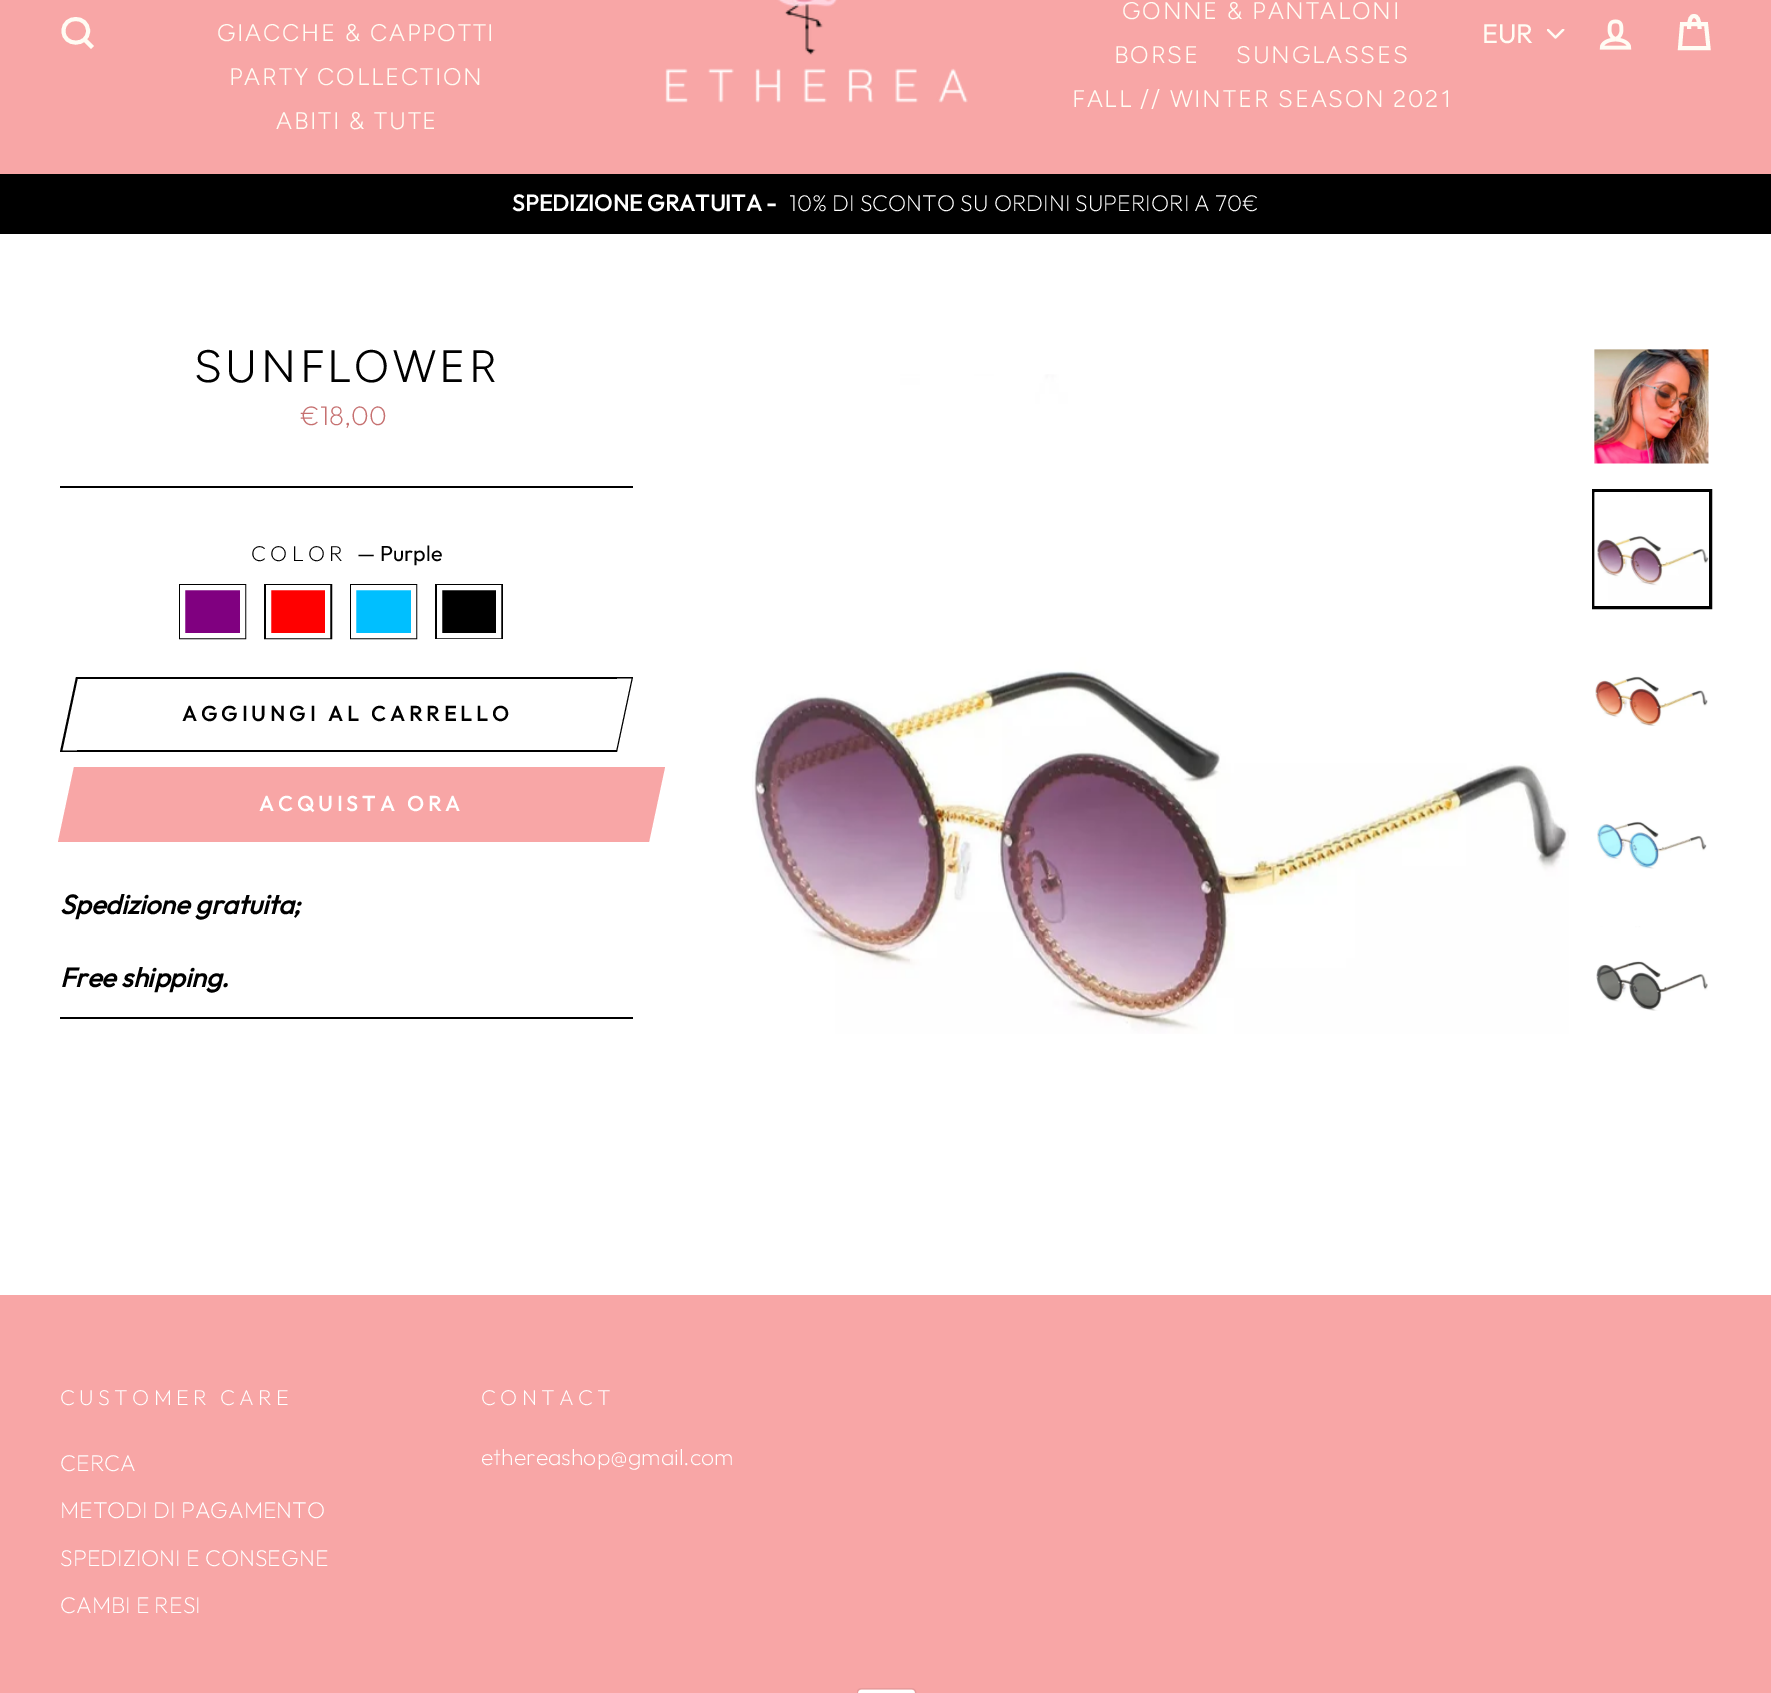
%!PS-Adobe-3.0
%%BoundingBox: 0 0 1771 1693
%%LanguageLevel: 3
%%Pages: 1
%%EndComments
%%BeginProlog
/setink { 3 { 255 div 3 1 roll } repeat setrgbcolor } def
/usefont { [ exch dup neg 0 0 3 -1 roll 0 0 ] selectfont } def
/drawtext { setink usefont moveto show } def
/fillbox { setink rectfill } def
/drawimage { 5 dict begin { /h /w /y /x /name } { exch def } forall
  gsave x y translate w h scale
  w h 8 [w 0 0 h 0 0] name (r) file false 3 colorimage grestore end } def
%%EndProlog
%%BeginSetup
<< /PageSize [1771 1693] >> setpagedevice
%%EndSetup
%%Page: 1 1
0 1693 translate 1 -1 scale
4 setmiterlimit
0 0 1771 1693 255 255 255 fillbox
0 0 1771 174 248 166 166 fillbox
255 252 244 setink
3.9 setlinewidth
88 31 moveto 88 46.5 63.5 46.5 63.5 31 curveto 63.5 15 88 15 88 31 curveto closepath 92.5 47.5 moveto 84.5 39.5 lineto stroke
/Figtree-Light 24 usefont
217 41 moveto 1.8 0 (GIACCHE & CAPPOTTI) ashow
229 85 moveto 1.8 0 (PARTY COLLECTION) ashow
276 129 moveto 1.8 0 (ABITI & TUTE) ashow
(assets/img1.rgb) 665 0 303 103 drawimage
1122 19 moveto 1.8 0 (GONNE & PANTALONI) ashow
1114 63 moveto 1.8 0 (BORSE) ashow
1236 63 moveto 1.8 0 (SUNGLASSES) ashow
1072 107 moveto 1.8 0 (FALL // WINTER SEASON 2021) ashow
(assets/img2.rgb) 1547 29 18 10 drawimage
(EUR) 1482 43 /Outfit-Regular 27 255 252 244 drawtext
(assets/img3.rgb) 1599 19 33 31 drawimage
1689 29 moveto 1689 18.5 1691 16 1694 16 curveto 1697 16 1699.5 18.5 1699.5 29 curveto 1682 24 moveto 1706 24 lineto 1708.5 48 lineto 1680 48 lineto closepath stroke
0 174 1771 60 0 0 0 fillbox
(SPEDIZIONE GRATUITA -) 512 211 /Outfit-Bold 22.95 255 255 255 drawtext
(10% DI SCONTO SU ORDINI SUPERIORI A 70€) 789 211 /Outfit-ExtraLight 22.95 255 255 255 drawtext
/Figtree-Light 45.25 usefont
0 0 0 setink
194 382 moveto 3.5 0 (SUNFLOWER) ashow
(€18,00) 300 425 /Outfit-ExtraLight 27 198 112 112 drawtext
60 486 573 2 0 0 0 fillbox
/Outfit-ExtraLight 21.6 usefont
251 561 moveto 4.25 0 (COLOR) ashow
(— Purple) 357 561 /Outfit-Regular 21.6 0 0 0 drawtext
185 590 55 43 128 0 128 fillbox
0 0 0 setink
3 setlinewidth
180.5 585.5 64 52 rectstroke
255 255 255 setink
5 setlinewidth
182.5 587.5 60 48 rectstroke
271 590 54 43 255 0 0 fillbox
0 0 0 setink
2 setlinewidth
265 585 66 53 rectstroke
255 255 255 setink
5 setlinewidth
268.5 587.5 59 48 rectstroke
356 590 55 43 0 191 255 fillbox
0 0 0 setink
2 setlinewidth
351 585 65 53 rectstroke
255 255 255 setink
5 setlinewidth
353.5 587.5 60 48 rectstroke
435 584 68 55 0 0 0 fillbox
255 255 255 setink
439.5 587.5 59 48 rectstroke
77 677 540 2 0 0 0 fillbox
77 750 540 2 0 0 0 fillbox
60.5 750.5 moveto 90.5 750.5 lineto 90 752 lineto 60 752 lineto closepath fill
76 677 moveto 78 677 lineto 62 752 lineto 60 752 lineto closepath fill
/Outfit-Bold 21 usefont
182 721 moveto 4.25 0 (AGGIUNGI AL CARRELLO) ashow
603 677 moveto 633 677 lineto 632.5 678.5 lineto 602.5 678.5 lineto closepath fill
632 677 moveto 633 677 lineto 617 752 lineto 616 752 lineto closepath fill
88 767 547 75 248 166 166 fillbox
74 767 moveto 104 767 lineto 88 842 lineto 58 842 lineto closepath fill
255 255 255 setink
259 811 moveto 4.25 0 (ACQUISTA ORA) ashow
248 166 166 setink
635 767 moveto 665 767 lineto 649 842 lineto 619 842 lineto closepath fill
(Spedizione gratuita;) 60 914 /Outfit-BoldItalic 27 0 0 0 drawtext
(Free shipping.) 60 987 /Outfit-BoldItalic 27 0 0 0 drawtext
60 1017 573 2 0 0 0 fillbox
(assets/img4.rgb) 752 374 817 660 drawimage
(assets/img5.rgb) 1594 349 115 115 drawimage
3 setlinewidth
1593.5 490.5 117 117 rectstroke
(assets/img6.rgb) 1594 492 115 114 drawimage
(assets/img7.rgb) 1595 676 113 50 drawimage
(assets/img8.rgb) 1597 821 110 48 drawimage
(assets/img9.rgb) 1596 926 112 85 drawimage
0 1295 1771 398 248 166 166 fillbox
/Outfit-ExtraLight 21.6 usefont
255 255 255 setink
60 1405 moveto 4.25 0 (CUSTOMER CARE) ashow
(CERCA) 60 1471 /Outfit-ExtraLight 22.95 255 255 255 drawtext
(METODI DI PAGAMENTO) 60 1518 /Outfit-ExtraLight 22.95 255 255 255 drawtext
(SPEDIZIONI E CONSEGNE) 60 1566 /Outfit-ExtraLight 22.95 255 255 255 drawtext
(CAMBI E RESI) 60 1613 /Outfit-ExtraLight 22.95 255 255 255 drawtext
/Outfit-ExtraLight 21.6 usefont
481 1405 moveto 4.25 0 (CONTACT) ashow
(ethereashop@gmail.com) 481 1465 /Outfit-ExtraLight 22.95 255 255 255 drawtext
(assets/img10.rgb) 857 1688 60 5 drawimage
showpage
%%EOF
